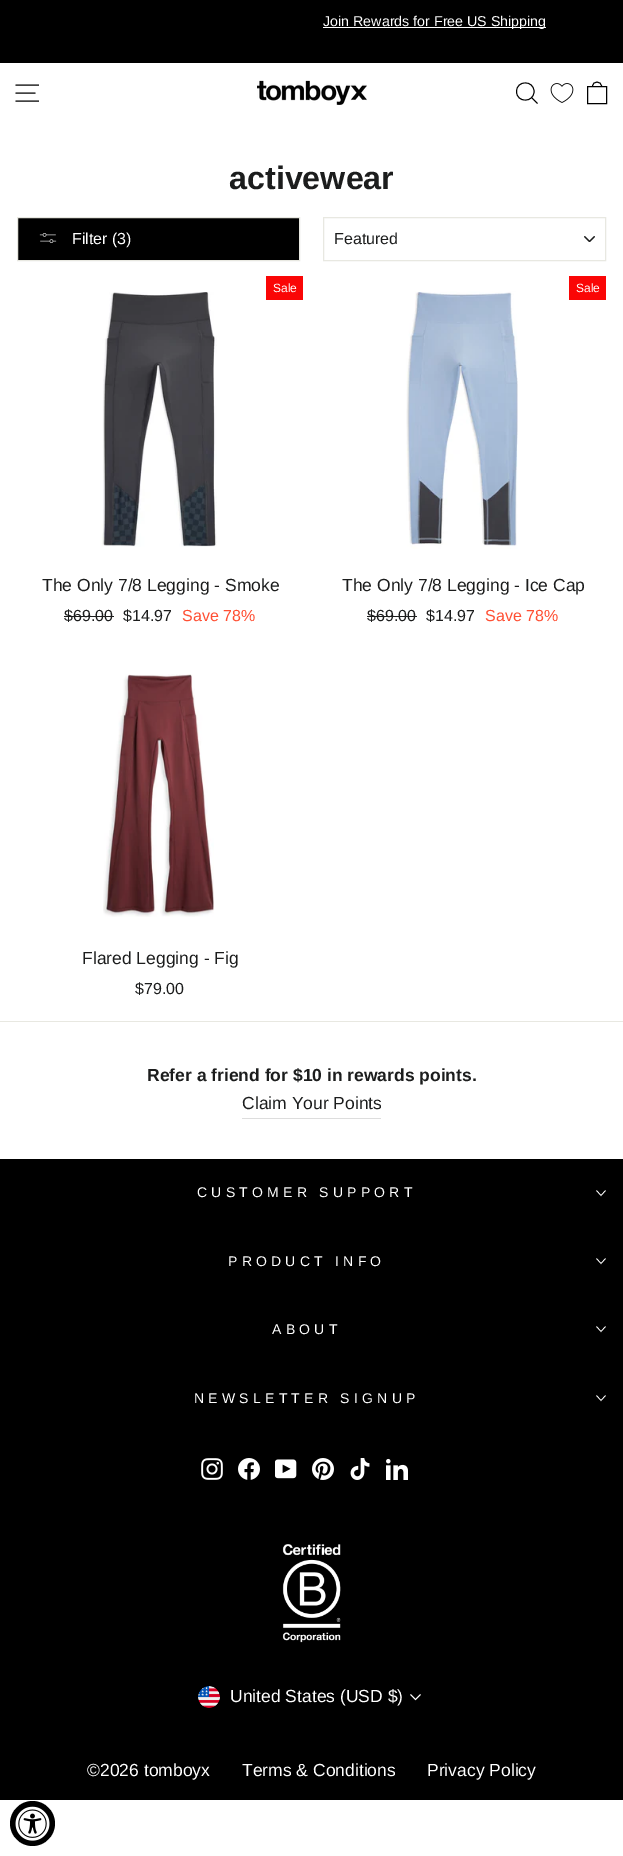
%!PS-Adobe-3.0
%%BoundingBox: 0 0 623 1856
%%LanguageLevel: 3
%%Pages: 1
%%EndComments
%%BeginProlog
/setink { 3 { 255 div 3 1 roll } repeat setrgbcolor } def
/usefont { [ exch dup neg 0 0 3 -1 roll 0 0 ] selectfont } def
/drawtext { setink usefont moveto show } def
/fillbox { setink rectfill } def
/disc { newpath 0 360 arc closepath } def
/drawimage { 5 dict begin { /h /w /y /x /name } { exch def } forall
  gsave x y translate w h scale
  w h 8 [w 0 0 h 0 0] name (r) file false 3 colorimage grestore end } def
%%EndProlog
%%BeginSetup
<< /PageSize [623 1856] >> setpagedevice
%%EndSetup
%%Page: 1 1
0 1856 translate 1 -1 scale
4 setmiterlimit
0 0 623 1856 255 255 255 fillbox
0 0 623 63 0 0 0 fillbox
323 27 223 1 255 255 255 fillbox
(Join Rewards for Free US Shipping) 323 26 /LiberationSans-Regular 14.25 255 255 255 drawtext
0 0 0 setink
0.9 setlinewidth
15.5 85 moveto 39 85 lineto 15.5 93 moveto 35.5 93 lineto 15.5 101 moveto 39 101 lineto stroke
(assets/img1.rgb) 257 80 110 25 drawimage
534 91.5 moveto 534 103 516.5 103 516.5 91.5 curveto 516.5 80 534 80 534 91.5 curveto closepath 537.5 103.5 moveto 531.5 97.5 lineto stroke
(assets/img2.rgb) 550 83 24 20 drawimage
587.5 86.5 moveto 606.5 86.5 lineto 606.5 103.5 lineto 587.5 103.5 lineto closepath 592.5 86.5 moveto 592.5 80.5 601.5 80.5 601.5 86.5 curveto stroke
(activewear) 229 189 /LiberationSans-Bold 32.25 28 29 29 drawtext
0 0 0 setink
17.5 217.5 moveto 299.5 217.5 lineto 299.5 260.5 lineto 17.5 260.5 lineto closepath gsave fill grestore
232 232 225 setink
1 setlinewidth
stroke
(assets/img3.rgb) 39 233 18 10 drawimage
(Filter \(3\)) 72 244 /LiberationSans-Regular 16 255 255 255 drawtext
(assets/img4.rgb) 584 236 11 6 drawimage
232 232 225 setink
323.5 217.5 282 43 rectstroke
(Featured) 334 244 /LiberationSans-Regular 16 28 29 29 drawtext
266 276 37 24 250 6 6 fillbox
(Sale) 273 292 /LiberationSans-Regular 12 255 255 255 drawtext
(assets/img5.rgb) 101 292 116 255 drawimage
(The Only 7/8 Legging - Smoke) 42 591 /LiberationSans-Regular 17.5 28 29 29 drawtext
($69.00) 64 621 /LiberationSans-Regular 16 28 29 29 drawtext
64 616 50 1 28 29 29 fillbox
($14.97) 123 621 /LiberationSans-Regular 16 28 29 29 drawtext
(Save 78%) 182 621 /LiberationSans-Regular 16 255 79 51 drawtext
569 276 37 24 250 6 6 fillbox
(Sale) 576 292 /LiberationSans-Regular 12 255 255 255 drawtext
(assets/img6.rgb) 406 291 112 258 drawimage
(The Only 7/8 Legging - Ice Cap) 342 591 /LiberationSans-Regular 17.5 28 29 29 drawtext
($69.00) 367 621 /LiberationSans-Regular 16 28 29 29 drawtext
367 616 50 1 28 29 29 fillbox
($14.97) 426 621 /LiberationSans-Regular 16 28 29 29 drawtext
(Save 78%) 485 621 /LiberationSans-Regular 16 255 79 51 drawtext
(assets/img7.rgb) 103 674 111 243 drawimage
(Flared Legging - Fig) 82 964 /LiberationSans-Regular 17.5 28 29 29 drawtext
($79.00) 135 994 /LiberationSans-Regular 16 28 29 29 drawtext
0 1021 623 1 232 232 225 fillbox
(Refer a friend for $10 in rewards points.) 147 1081 /LiberationSans-Bold 17.5 28 29 29 drawtext
242 1118 139 1 221 221 221 fillbox
(Claim Your Points) 242 1109 /LiberationSans-Regular 17.5 28 29 29 drawtext
0 1159 623 641 0 0 0 fillbox
/LiberationSans-Regular 14 usefont
255 255 255 setink
197 1197 moveto 4.25 0 (CUSTOMER SUPPORT) ashow
0.7 setlinewidth
596.5 1190.5 moveto 601 1195.5 lineto 605.5 1190.5 lineto stroke
228 1266 moveto 4.25 0 (PRODUCT INFO) ashow
596.5 1258.5 moveto 601 1263.5 lineto 605.5 1258.5 lineto stroke
272 1334 moveto 4.25 0 (ABOUT) ashow
596.5 1326.5 moveto 601 1331.5 lineto 605.5 1326.5 lineto stroke
194 1403 moveto 4.25 0 (NEWSLETTER SIGNUP) ashow
596.5 1395.5 moveto 601 1400.5 lineto 605.5 1395.5 lineto stroke
(assets/img8.rgb) 201 1458 22 22 drawimage
(assets/img9.rgb) 238 1458 22 22 drawimage
(assets/img10.rgb) 275 1459 22 20 drawimage
(assets/img11.rgb) 312 1458 22 22 drawimage
(assets/img12.rgb) 350 1458 20 22 drawimage
(assets/img13.rgb) 386 1458 22 22 drawimage
(assets/img14.rgb) 282 1544 59 99 drawimage
(assets/img15.rgb) 198 1686 22 22 drawimage
(United States \(USD $\)) 230 1702 /LiberationSans-Regular 17.5 255 255 255 drawtext
0.8 setlinewidth
410.5 1694.5 moveto 415.5 1699.5 lineto 420.5 1694.5 lineto stroke
(©2026 tomboyx) 87 1776 /LiberationSans-Regular 17.5 255 255 255 drawtext
(Terms & Conditions) 242 1776 /LiberationSans-Regular 17.5 255 255 255 drawtext
(Privacy Policy) 427 1776 /LiberationSans-Regular 17.5 255 255 255 drawtext
0 0 0 setink
32.5 1823.5 22.5 disc fill
(assets/img16.rgb) 15 1806 35 35 drawimage
showpage
%%EOF
